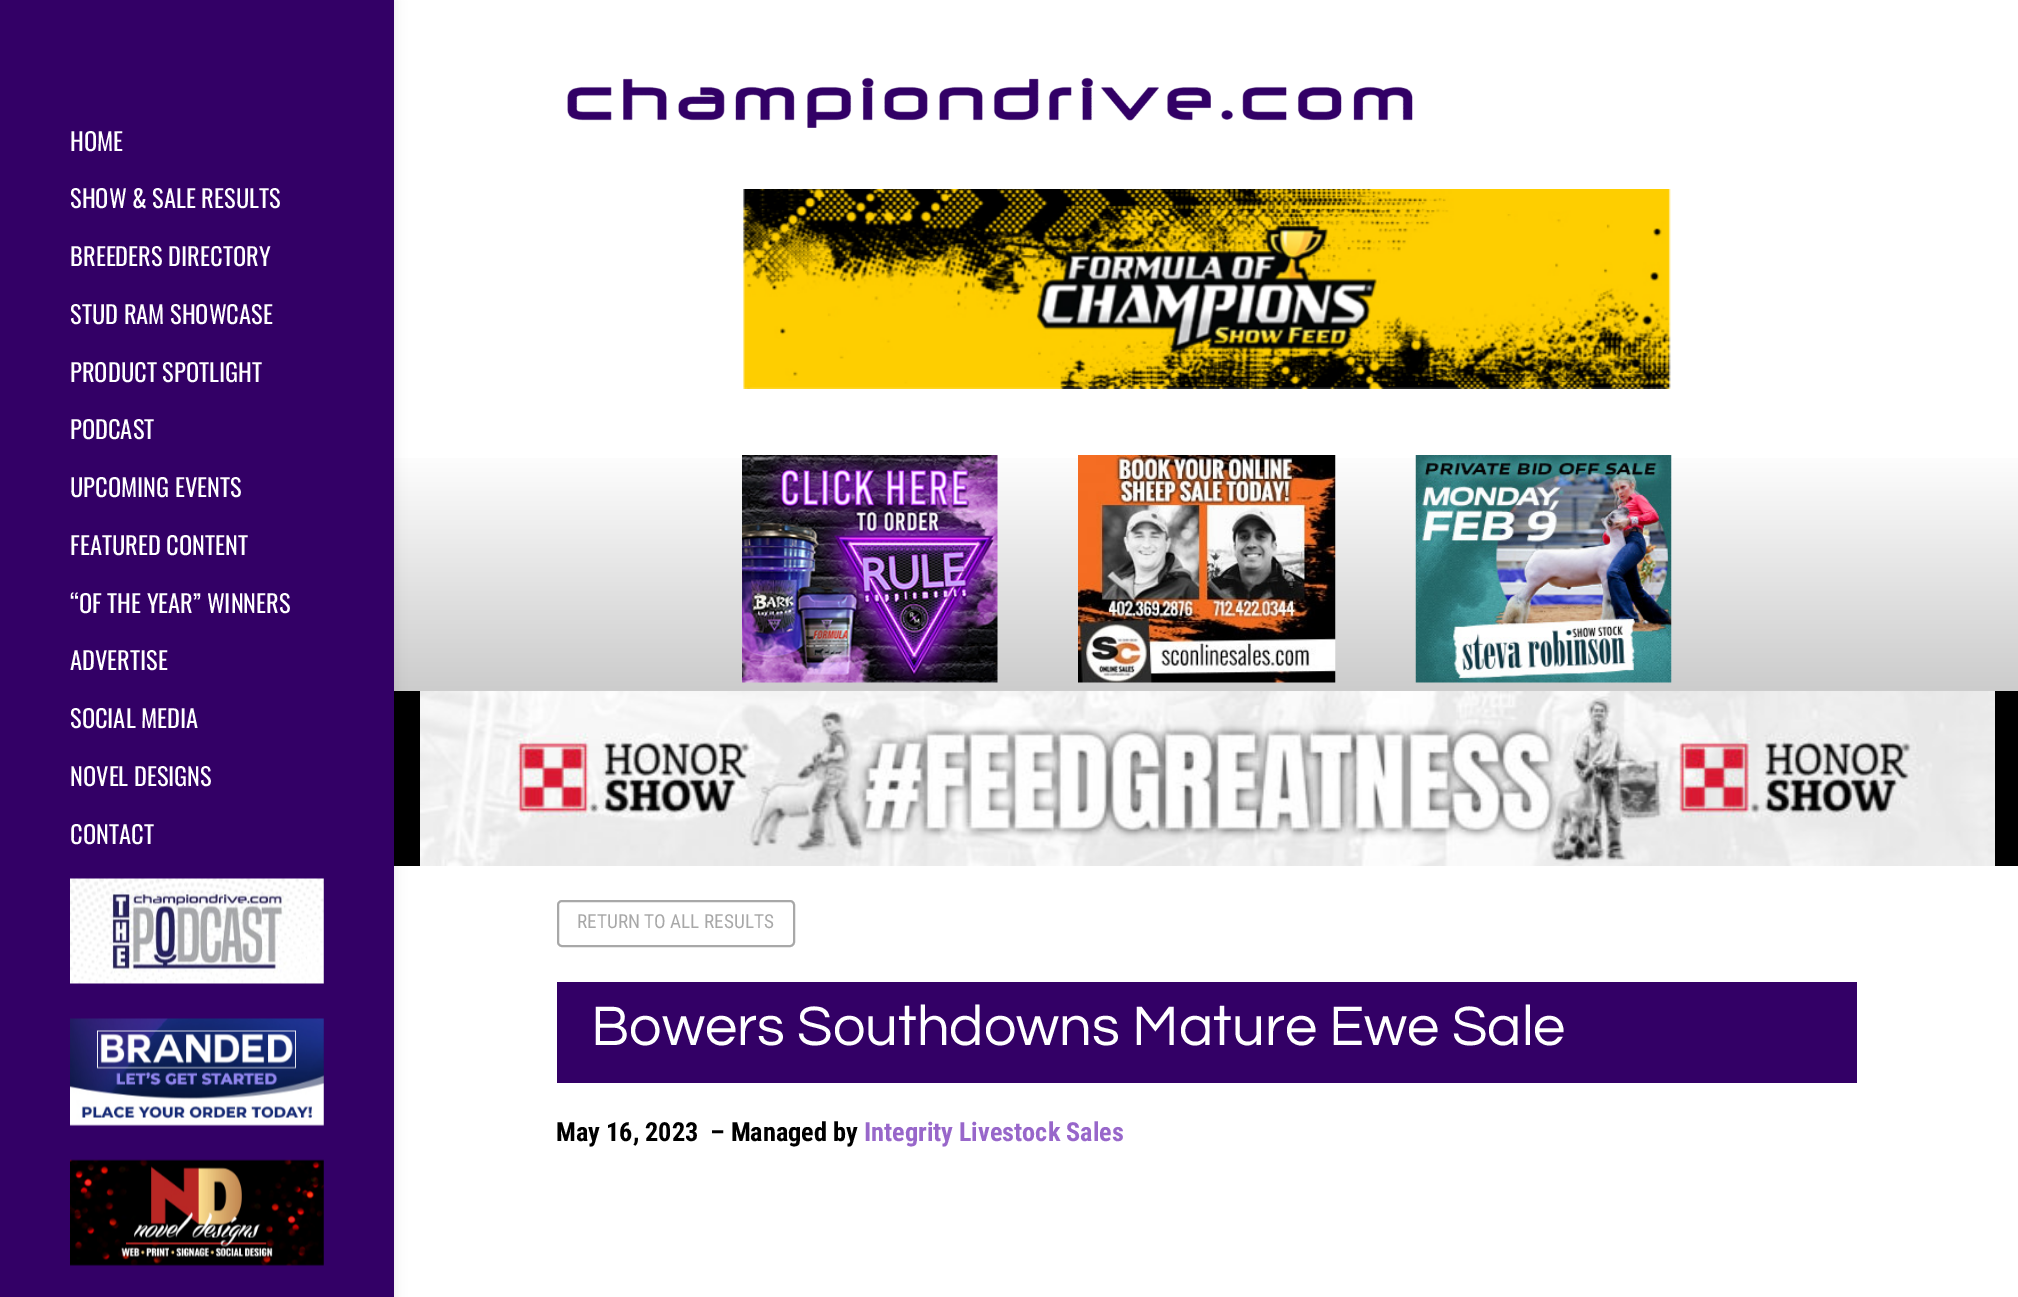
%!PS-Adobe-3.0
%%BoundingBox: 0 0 2018 1297
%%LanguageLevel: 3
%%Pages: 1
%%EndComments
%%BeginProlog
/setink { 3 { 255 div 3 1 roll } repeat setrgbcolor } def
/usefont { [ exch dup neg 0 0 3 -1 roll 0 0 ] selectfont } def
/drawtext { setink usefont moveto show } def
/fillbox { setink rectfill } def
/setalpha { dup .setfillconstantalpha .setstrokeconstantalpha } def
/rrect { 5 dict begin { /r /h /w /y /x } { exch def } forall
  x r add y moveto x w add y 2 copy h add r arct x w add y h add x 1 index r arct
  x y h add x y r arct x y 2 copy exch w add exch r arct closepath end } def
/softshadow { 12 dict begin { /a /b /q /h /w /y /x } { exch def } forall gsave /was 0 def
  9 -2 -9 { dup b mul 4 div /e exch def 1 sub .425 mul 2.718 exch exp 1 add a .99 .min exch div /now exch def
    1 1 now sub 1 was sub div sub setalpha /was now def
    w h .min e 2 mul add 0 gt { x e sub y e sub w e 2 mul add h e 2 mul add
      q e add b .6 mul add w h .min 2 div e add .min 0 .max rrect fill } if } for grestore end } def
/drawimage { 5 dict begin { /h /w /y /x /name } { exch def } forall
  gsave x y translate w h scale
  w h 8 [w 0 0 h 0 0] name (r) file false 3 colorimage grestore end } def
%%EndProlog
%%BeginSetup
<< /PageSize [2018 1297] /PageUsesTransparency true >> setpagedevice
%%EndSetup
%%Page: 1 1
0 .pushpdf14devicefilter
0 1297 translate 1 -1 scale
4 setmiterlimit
0 0 2018 1297 255 255 255 fillbox
gsave 394 458 moveto 2018 458 lineto 2018 691 lineto 394 691 lineto closepath clip newpath
<< /ShadingType 2 /ColorSpace /DeviceRGB /Coords [1207 446 1207 866] /Extend [true true] /Function << /FunctionType 2 /Domain [0 1] /C0 [1 1 1] /C1 [0.659 0.659 0.659] /N 1 >> >> shfill grestore
394 691 1624 175 0 0 0 fillbox
0 0 394 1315 0 6 0.1 softshadow
0 0 394 1297 51 0 102 fillbox
(HOME) 70 151 /Oswald-Regular 24.5 255 255 255 drawtext
(SHOW & SALE RESULTS) 70 208 /Oswald-Regular 24.5 255 255 255 drawtext
(BREEDERS DIRECTORY) 70 266 /Oswald-Regular 24.5 255 255 255 drawtext
(STUD RAM SHOWCASE) 70 324 /Oswald-Regular 24.5 255 255 255 drawtext
(PRODUCT SPOTLIGHT) 70 382 /Oswald-Regular 24.5 255 255 255 drawtext
(PODCAST) 70 439 /Oswald-Regular 24.5 255 255 255 drawtext
(UPCOMING EVENTS) 70 497 /Oswald-Regular 24.5 255 255 255 drawtext
(FEATURED CONTENT) 70 555 /Oswald-Regular 24.5 255 255 255 drawtext
(“OF THE YEAR” WINNERS) 70 613 /Oswald-Regular 24.5 255 255 255 drawtext
(ADVERTISE) 70 670 /Oswald-Regular 24.5 255 255 255 drawtext
(SOCIAL MEDIA) 70 728 /Oswald-Regular 24.5 255 255 255 drawtext
(NOVEL DESIGNS) 70 786 /Oswald-Regular 24.5 255 255 255 drawtext
(CONTACT) 70 844 /Oswald-Regular 24.5 255 255 255 drawtext
(assets/img1.rgb) 70 878 254 106 drawimage
(assets/img2.rgb) 70 1018 254 108 drawimage
(assets/img3.rgb) 70 1159 254 107 drawimage
(assets/img4.rgb) 567 77 846 51 drawimage
(assets/img5.rgb) 743 189 928 200 drawimage
(assets/img6.rgb) 742 455 256 228 drawimage
(assets/img7.rgb) 1078 455 258 228 drawimage
(assets/img8.rgb) 1415 455 257 228 drawimage
(assets/img9.rgb) 420 691 1575 175 drawimage
168 168 168 setink
2 setlinewidth
558 901 236 45 4 rrect stroke
(RETURN TO ALL RESULTS) 577 928 /RobotoCondensed-Regular 19.25 168 168 168 drawtext
557 982 1300 101 51 0 102 fillbox
(Bowers Southdowns Mature Ewe Sale) 591 1045 /Questrial-Regular 57.75 255 255 255 drawtext
(May 16, 2023  – Managed by) 556 1141 /RobotoCondensed-Bold 26.25 0 0 0 drawtext
(Integrity Livestock Sales) 864 1141 /RobotoCondensed-Bold 26.25 152 103 202 drawtext
.poppdf14devicefilter showpage
%%EOF
